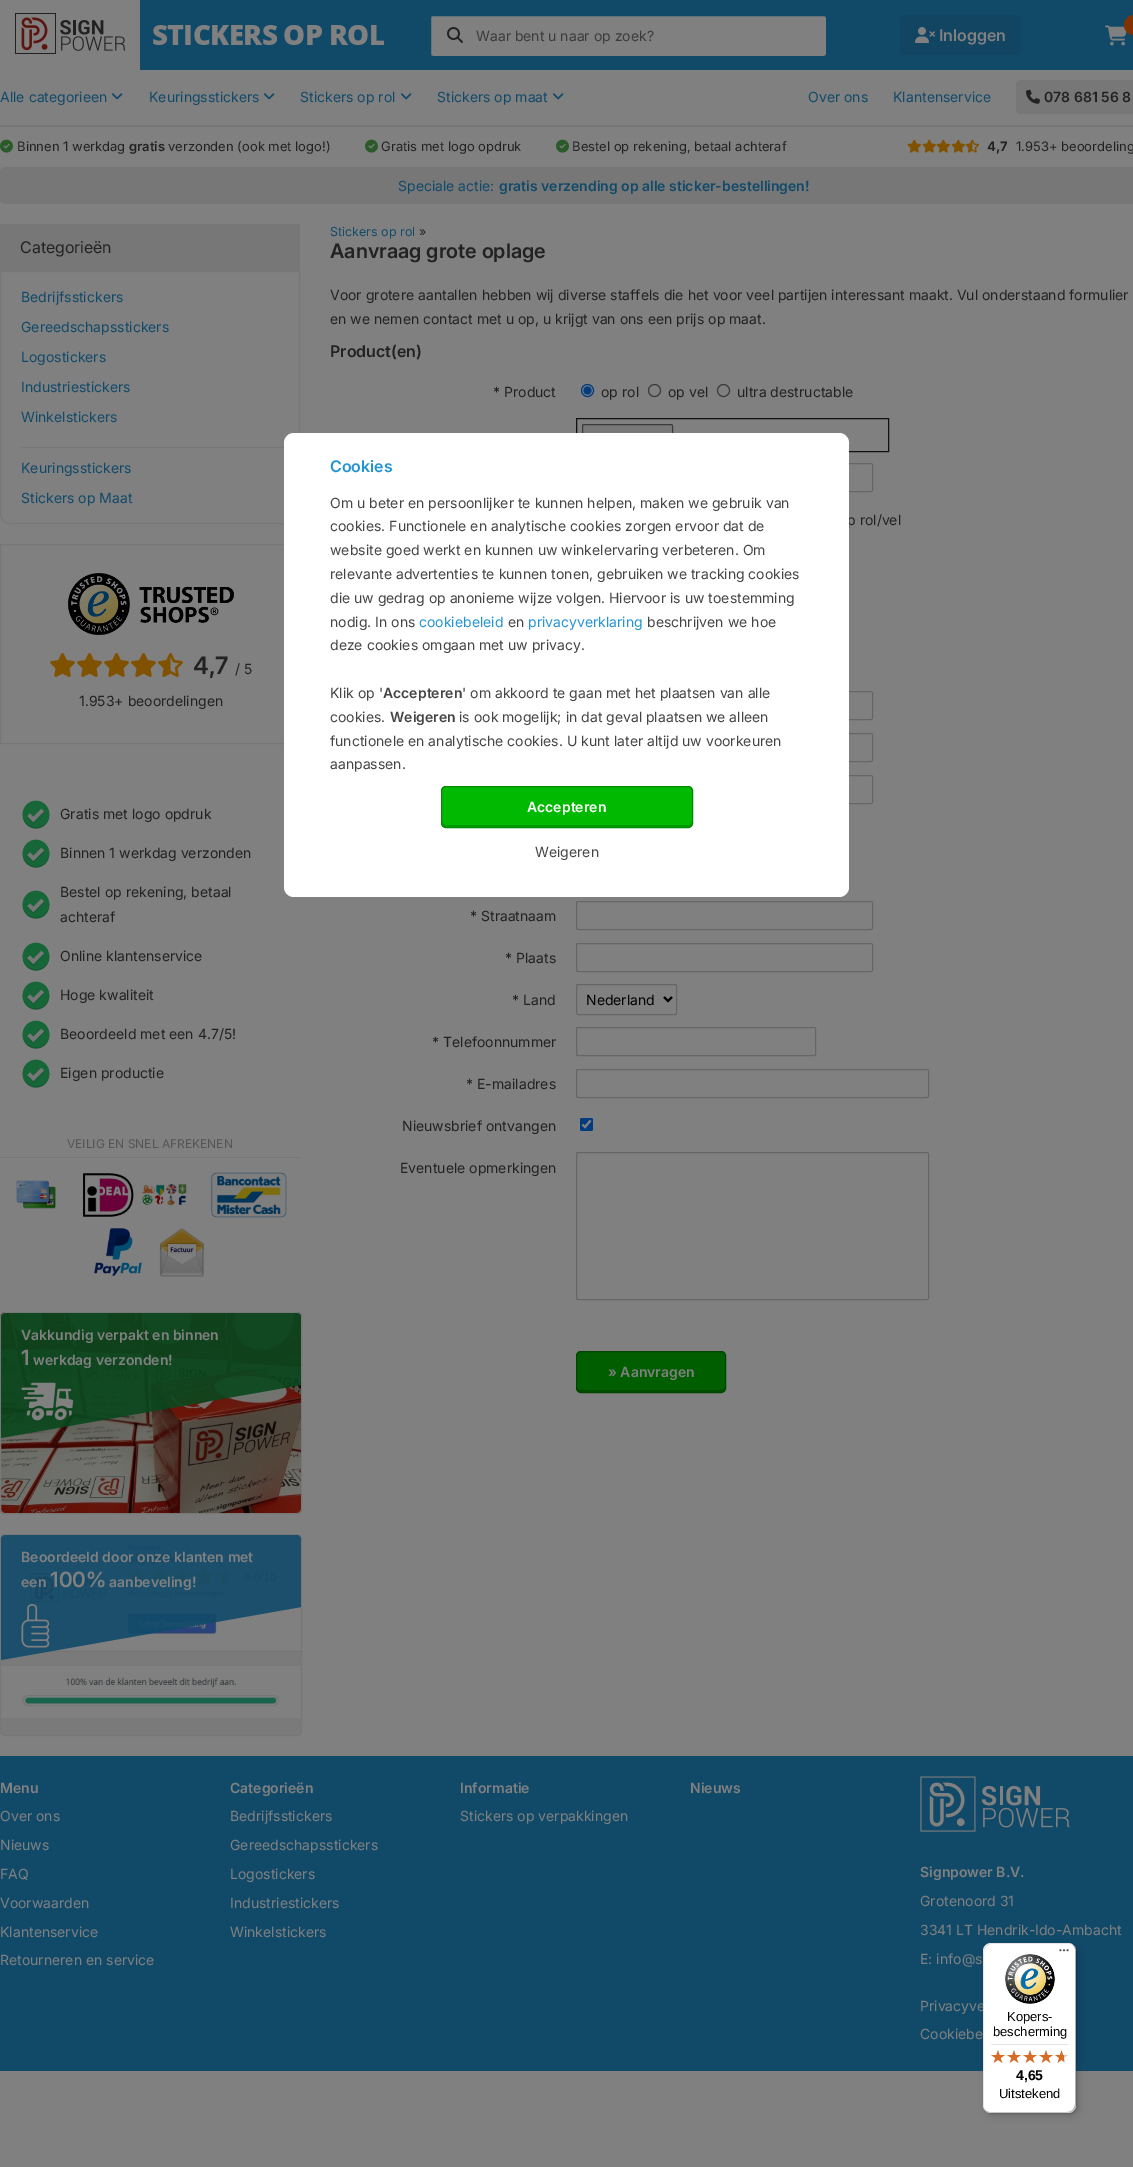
%!PS-Adobe-3.0
%%BoundingBox: 0 0 1133 2167
%%LanguageLevel: 3
%%Pages: 1
%%EndComments
%%BeginProlog
/setink { 3 { 255 div 3 1 roll } repeat setrgbcolor } def
/usefont { [ exch dup neg 0 0 3 -1 roll 0 0 ] selectfont } def
/drawtext { setink usefont moveto show } def
/fillbox { setink rectfill } def
/setalpha { dup .setfillconstantalpha .setstrokeconstantalpha } def
/disc { newpath 0 360 arc closepath } def
/rrect { 5 dict begin { /r /h /w /y /x } { exch def } forall
  x r add y moveto x w add y 2 copy h add r arct x w add y h add x 1 index r arct
  x y h add x y r arct x y 2 copy exch w add exch r arct closepath end } def
/softshadow { 12 dict begin { /a /b /q /h /w /y /x } { exch def } forall gsave /was 0 def
  9 -2 -9 { dup b mul 4 div /e exch def 1 sub .425 mul 2.718 exch exp 1 add a .99 .min exch div /now exch def
    1 1 now sub 1 was sub div sub setalpha /was now def
    w h .min e 2 mul add 0 gt { x e sub y e sub w e 2 mul add h e 2 mul add
      q e add b .6 mul add w h .min 2 div e add .min 0 .max rrect fill } if } for grestore end } def
/drawimage { 5 dict begin { /h /w /y /x /name } { exch def } forall
  gsave x y translate w h scale
  w h 8 [w 0 0 h 0 0] name (r) file false 3 colorimage grestore end } def
%%EndProlog
%%BeginSetup
<< /PageSize [1133 2167] /PageUsesTransparency true >> setpagedevice
%%EndSetup
%%Page: 1 1
0 .pushpdf14devicefilter
0 2167 translate 1 -1 scale
4 setmiterlimit
0 0 1133 2167 128 128 128 fillbox
140 0 993 70 17 74 105 fillbox
0 125 1133 2 119 119 119 fillbox
(assets/img1.rgb) 15 13 111 41 drawimage
(assets/img2.rgb) 153 25 231 20 drawimage
128 128 128 setink
430.5 15.5 396 41 2.5 rrect gsave fill grestore
17 74 105 setink
stroke
(assets/img3.rgb) 447 27 16 16 drawimage
(Waar bent u naar op zoek?) 476 41 /Inter-Regular 14 59 59 59 drawtext
17 69 98 setink
900 15 121 40 5 rrect fill
(assets/img4.rgb) 915 27 20 16 drawimage
(Inloggen) 939 41 /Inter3-SemiBold 16 128 128 128 drawtext
(assets/img5.rgb) 1105 25 22 21 drawimage
128 51 0 setink
1124 15 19 20 10 rrect fill
(Alle categorieen) 0 102 /Inter-Regular 14 17 74 105 drawtext
(assets/img6.rgb) 111 93 12 7 drawimage
(Keuringsstickers) 149 102 /Inter-Regular 14 17 74 105 drawtext
(assets/img6.rgb) 263 93 12 7 drawimage
(Stickers op rol) 300 102 /Inter-Regular 14 17 74 105 drawtext
(assets/img6.rgb) 400 93 12 7 drawimage
(Stickers op maat) 437 102 /Inter-Regular 14 17 74 105 drawtext
(assets/img6.rgb) 552 93 12 7 drawimage
(Over ons) 808 102 /Inter-Regular 14 17 74 105 drawtext
(Klantenservice) 893 102 /Inter-Regular 14 17 74 105 drawtext
119 119 119 setink
1016 80 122 34 5 rrect fill
(assets/img7.rgb) 1026 89 14 15 drawimage
(078 681 56 8) 1044 102 /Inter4-SemiBold 14 34 34 34 drawtext
(assets/img8.rgb) 0 139 13 14 drawimage
(Binnen 1 werkdag) 17 151 /Inter-Regular 13 34 34 34 drawtext
(gratis) 129 151 /Inter4-SemiBold 13 34 34 34 drawtext
(verzonden \(ook met logo!\)) 168 151 /Inter-Regular 13 34 34 34 drawtext
(assets/img8.rgb) 365 139 13 14 drawimage
(Gratis met logo opdruk) 381 151 /Inter-Regular 13 34 34 34 drawtext
(assets/img8.rgb) 556 139 13 14 drawimage
(Bestel op rekening, betaal achteraf) 572 151 /Inter-Regular 13 34 34 34 drawtext
(assets/img9.rgb) 907 139 14 14 drawimage
(assets/img9.rgb) 922 139 14 14 drawimage
(assets/img9.rgb) 936 139 14 14 drawimage
(assets/img9.rgb) 951 139 14 14 drawimage
(assets/img10.rgb) 965 139 14 14 drawimage
(4,7) 987 151 /Inter-Bold 13 34 34 34 drawtext
(1.953+ beoordeling) 1016 151 /Inter-Regular 13 34 34 34 drawtext
119 119 119 setink
0 167 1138 37 5 rrect fill
(Speciale actie:) 398 191 /Inter-Regular 14 17 74 105 drawtext
(gratis verzending op alle sticker-bestellingen!) 499 191 /Inter4-SemiBold 14 17 74 105 drawtext
0 224 300 47 119 119 119 fillbox
(Categorieën) 20 253 /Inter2-Regular 16 34 34 34 drawtext
119 119 119 setink
0.5 271.5 moveto 299.5 271.5 lineto 299.5 514 lineto 299.5 519 295 523.5 290 523.5 curveto 10 523.5 lineto 5 523.5 0.5 519 0.5 514 curveto closepath stroke
(Bedrijfsstickers) 21 302 /Inter-Regular 14 17 74 105 drawtext
(Gereedschapsstickers) 21 332 /Inter-Regular 14 17 74 105 drawtext
(Logostickers) 21 362 /Inter-Regular 14 17 74 105 drawtext
(Industriestickers) 21 392 /Inter-Regular 14 17 74 105 drawtext
(Winkelstickers) 21 422 /Inter-Regular 14 17 74 105 drawtext
21 447 263 1 119 119 119 fillbox
(Keuringsstickers) 21 473 /Inter-Regular 14 17 74 105 drawtext
(Stickers op Maat) 21 503 /Inter-Regular 14 17 74 105 drawtext
119 119 119 setink
0.5 544.5 301 199 rectstroke
(assets/img11.rgb) 68 573 166 62 drawimage
(assets/img12.rgb) 50 653 25 24 drawimage
(assets/img12.rgb) 77 653 25 24 drawimage
(assets/img12.rgb) 104 653 25 24 drawimage
(assets/img12.rgb) 131 653 25 24 drawimage
(assets/img13.rgb) 158 653 25 24 drawimage
(4,7) 193 674 /Inter-SemiBold 24 34 34 34 drawtext
(/ 5) 235 674 /Inter-Regular 14 34 34 34 drawtext
(1.953+ beoordelingen) 79 706 /Inter-Regular 14 34 34 34 drawtext
(assets/img14.rgb) 22 800 28 29 drawimage
(Gratis met logo opdruk) 60 819 /Inter-Regular 14 34 34 34 drawtext
(assets/img14.rgb) 22 839 28 29 drawimage
(Binnen 1 werkdag verzonden) 60 858 /Inter-Regular 14 34 34 34 drawtext
(assets/img14.rgb) 22 890 28 29 drawimage
(Bestel op rekening, betaal) 60 897 /Inter-Regular 14 34 34 34 drawtext
(achteraf) 60 922 /Inter-Regular 14 34 34 34 drawtext
(assets/img14.rgb) 22 942 28 29 drawimage
(Online klantenservice) 60 961 /Inter-Regular 14 34 34 34 drawtext
(assets/img14.rgb) 22 981 28 29 drawimage
(Hoge kwaliteit) 60 1000 /Inter-Regular 14 34 34 34 drawtext
(assets/img14.rgb) 22 1020 28 29 drawimage
(Beoordeeld met een 4.7/5!) 60 1039 /Inter-Regular 14 34 34 34 drawtext
(assets/img14.rgb) 22 1059 28 29 drawimage
(Eigen productie) 60 1078 /Inter-Regular 14 34 34 34 drawtext
0 1157 300 1 119 119 119 fillbox
(VEILIG EN SNEL AFREKENEN) 67 1148 /Inter-Regular 12 85 85 85 drawtext
(assets/img15.rgb) 16 1180 40 29 drawimage
(assets/img16.rgb) 83 1173 104 44 drawimage
(assets/img17.rgb) 211 1172 76 46 drawimage
(assets/img18.rgb) 94 1228 48 48 drawimage
(assets/img19.rgb) 159 1228 45 49 drawimage
(assets/img20.rgb) 0 1312 302 202 drawimage
119 119 119 setink
0.5 1312.5 301 201 4.5 rrect stroke
0.9 setalpha
9 71 29 setink
5 1313 moveto 3 1313 1 1315 1 1317 curveto 1 1438 lineto 301 1385 lineto 301 1317 lineto 301 1315 299 1313 297 1313 curveto closepath fill
1 setalpha
(Vakkundig verpakt en binnen) 21 1340 /Inter4-SemiBold 14 128 128 128 drawtext
(1) 21 1365 /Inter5-SemiBold 21 128 128 128 drawtext
(werkdag verzonden!) 33 1365 /Inter4-SemiBold 14 128 128 128 drawtext
(assets/img21.rgb) 21 1382 53 39 drawimage
(assets/img22.rgb) 0 1534 302 201 drawimage
119 119 119 setink
0.5 1534.5 301 201 4.5 rrect stroke
0.9 setalpha
17 74 105 setink
5 1535 moveto 3 1535 1 1537 1 1539 curveto 1 1660 lineto 301 1607 lineto 301 1539 lineto 301 1537 299 1535 297 1535 curveto closepath fill
1 setalpha
(Beoordeeld door onze klanten met) 21 1562 /Inter4-SemiBold 14 128 128 128 drawtext
(een) 21 1587 /Inter4-SemiBold 14 128 128 128 drawtext
(100%) 50 1587 /Inter5-SemiBold 21 128 128 128 drawtext
(aanbeveling!) 109 1587 /Inter4-SemiBold 14 128 128 128 drawtext
(assets/img23.rgb) 21 1604 29 44 drawimage
(Stickers op rol) 330 236 /Inter-Regular 12.5 17 74 105 drawtext
(») 419 236 /Inter-Regular 12.5 34 34 34 drawtext
(Aanvraag grote oplage) 330 258 /Inter2-SemiBold 20 34 34 34 drawtext
(Voor grotere aantallen hebben wij diverse staffels die het voor veel partijen interessant maakt. Vul onderstaand formulier) 330 300 /Inter-Regular 14 34 34 34 drawtext
(en we nemen contact met u op, u krijgt van ons een prijs op maat.) 330 324 /Inter-Regular 14 34 34 34 drawtext
(Product\(en\)) 330 357 /Inter3-SemiBold 16 34 34 34 drawtext
(* Product) 493 397 /Inter-Regular 14 34 34 34 drawtext
0 59 128 setink
587.5 390.5 6 disc stroke
587.5 390.5 4 disc fill
(op rol) 601 397 /Inter-Regular 14 34 34 34 drawtext
59 59 59 setink
654.5 390.5 6 disc stroke
(op vel) 668 397 /Inter-Regular 14 34 34 34 drawtext
59 59 59 setink
723.5 390.5 6 disc stroke
(ultra destructable) 737 397 /Inter-Regular 14 34 34 34 drawtext
17 17 17 setink
576.5 418.5 312 33 rectstroke
120 120 120 setink
582.5 424.5 90 21 1.5 rrect gsave fill grestore
59 59 59 setink
stroke
102 102 102 setink
576.5 463.5 296 28 1.5 rrect stroke
(p rol/vel) 847 525 /Inter-Regular 14 34 34 34 drawtext
102 102 102 setink
576.5 691.5 296 28 1.5 rrect stroke
576.5 733.5 296 28 1.5 rrect stroke
576.5 775.5 296 28 1.5 rrect stroke
(* Straatnaam) 470 921 /Inter-Regular 14 34 34 34 drawtext
102 102 102 setink
576.5 901.5 296 28 1.5 rrect stroke
(* Plaats) 505 963 /Inter-Regular 14 34 34 34 drawtext
102 102 102 setink
576.5 943.5 296 28 1.5 rrect stroke
(* Land) 512 1005 /Inter-Regular 14 34 34 34 drawtext
102 102 102 setink
576.5 984.5 100 30 1.5 rrect stroke
0 0 0 setink
2 setlinewidth
664 997 moveto 668 1001 lineto 672 997 lineto stroke
(Nederland) 586 1005 /Inter-Regular 14 0 0 0 drawtext
(* Telefoonnummer) 432 1047 /Inter-Regular 14 34 34 34 drawtext
102 102 102 setink
1 setlinewidth
576.5 1027.5 239 28 1.5 rrect stroke
(* E-mailadres) 466 1089 /Inter-Regular 14 34 34 34 drawtext
102 102 102 setink
576.5 1069.5 352 28 1.5 rrect stroke
(Nieuwsbrief ontvangen) 402 1131 /Inter-Regular 14 34 34 34 drawtext
0 59 128 setink
580 1118 13 13 2 rrect fill
128 128 128 setink
2.1 setlinewidth
582.5 1124.5 moveto 585 1127 lineto 590.5 1120.5 lineto stroke
(Eventuele opmerkingen) 400 1173 /Inter-Regular 14 34 34 34 drawtext
102 102 102 setink
1 setlinewidth
576.5 1152.5 352 147 1.5 rrect stroke
0 93 0 setink
576 1351 150 42 5 rrect fill
0 77 0 setink
577 1386 moveto 577 1388 lineto 577 1390 579 1392 581 1392 curveto 721 1392 lineto 723 1392 725 1390 725 1388 curveto 725 1386 lineto 724 1389 lineto 721 1390 lineto 581 1390 lineto 579 1390 577 1388 577 1386 curveto closepath fill
0 70 0 setink
576.5 1351.5 149 41 4.5 rrect stroke
(» Aanvragen) 608 1377 /Inter4-SemiBold 14 128 128 128 drawtext
255 255 255 setink
284 433 565 464 10 rrect fill
(Cookies) 330 472 /Inter3-SemiBold 16 34 148 210 drawtext
(Om u beter en persoonlijker te kunnen helpen, maken we gebruik van) 330 508 /Inter-Regular 14 68 68 68 drawtext
(cookies. Functionele en analytische cookies zorgen ervoor dat de) 330 531 /Inter-Regular 14 68 68 68 drawtext
(website goed werkt en kunnen uw winkelervaring verbeteren. Om) 330 555 /Inter-Regular 14 68 68 68 drawtext
(relevante advertenties te kunnen tonen, gebruiken we tracking cookies) 330 579 /Inter-Regular 14 68 68 68 drawtext
(die uw gedrag op anonieme wijze volgen. Hiervoor is uw toestemming) 330 603 /Inter-Regular 14 68 68 68 drawtext
(nodig. In ons) 330 627 /Inter-Regular 14 68 68 68 drawtext
(cookiebeleid) 419 627 /Inter-Regular 14 34 148 210 drawtext
(en) 508 627 /Inter-Regular 14 68 68 68 drawtext
(privacyverklaring) 528 627 /Inter-Regular 14 34 148 210 drawtext
(beschrijven we hoe) 647 627 /Inter-Regular 14 68 68 68 drawtext
(deze cookies omgaan met uw privacy.) 330 650 /Inter-Regular 14 68 68 68 drawtext
(Klik op ') 330 698 /Inter-Regular 14 68 68 68 drawtext
(Accepteren) 383 698 /Inter4-SemiBold 14 68 68 68 drawtext
(' om akkoord te gaan met het plaatsen van alle) 462 698 /Inter-Regular 14 68 68 68 drawtext
(cookies.) 330 722 /Inter-Regular 14 68 68 68 drawtext
(Weigeren) 390 722 /Inter4-SemiBold 14 68 68 68 drawtext
(is ook mogelijk; in dat geval plaatsen we alleen) 459 722 /Inter-Regular 14 68 68 68 drawtext
(functionele en analytische cookies. U kunt later altijd uw voorkeuren) 330 746 /Inter-Regular 14 68 68 68 drawtext
(aanpassen.) 330 769 /Inter-Regular 14 68 68 68 drawtext
0 185 0 setink
441 786 252 42 5 rrect fill
0 153 0 setink
442 821 moveto 442 823 lineto 442 825 444 827 446 827 curveto 688 827 lineto 690 827 692 825 692 823 curveto 692 821 lineto 692 823 690 825 688 825 curveto 446 825 lineto 444 825 442 823 442 821 curveto closepath fill
0 140 0 setink
441.5 786.5 251 41 4.5 rrect stroke
(Accepteren) 527 812 /Inter4-SemiBold 14 255 255 255 drawtext
(Weigeren) 535 857 /Inter-Regular 14 68 68 68 drawtext
0 1756 1133 315 17 74 105 fillbox
(Menu) 0 1793 /Inter4-SemiBold 14 128 128 128 drawtext
(Over ons) 0 1821 /Inter-Regular 14 128 128 128 drawtext
(Nieuws) 0 1850 /Inter-Regular 14 128 128 128 drawtext
(FAQ) 0 1879 /Inter-Regular 14 128 128 128 drawtext
(Voorwaarden) 0 1908 /Inter-Regular 14 128 128 128 drawtext
(Klantenservice) 0 1937 /Inter-Regular 14 128 128 128 drawtext
(Retourneren en service) 0 1965 /Inter-Regular 14 128 128 128 drawtext
(Categorieën) 230 1793 /Inter4-SemiBold 14 128 128 128 drawtext
(Bedrijfsstickers) 230 1821 /Inter-Regular 14 128 128 128 drawtext
(Gereedschapsstickers) 230 1850 /Inter-Regular 14 128 128 128 drawtext
(Logostickers) 230 1879 /Inter-Regular 14 128 128 128 drawtext
(Industriestickers) 230 1908 /Inter-Regular 14 128 128 128 drawtext
(Winkelstickers) 230 1937 /Inter-Regular 14 128 128 128 drawtext
(Informatie) 460 1793 /Inter4-SemiBold 14 128 128 128 drawtext
(Stickers op verpakkingen) 460 1821 /Inter-Regular 14 128 128 128 drawtext
(Nieuws) 690 1793 /Inter4-SemiBold 14 128 128 128 drawtext
(assets/img24.rgb) 920 1776 150 56 drawimage
(Signpower B.V.) 920 1877 /Inter4-SemiBold 14 128 128 128 drawtext
(Grotenoord 31) 920 1906 /Inter-Regular 14 128 128 128 drawtext
(3341 LT Hendrik-Ido-Ambacht) 920 1935 /Inter-Regular 14 128 128 128 drawtext
(E: info@s) 920 1964 /Inter-Regular 14 128 128 128 drawtext
(Privacyve) 920 2011 /Inter-Regular 14 128 128 128 drawtext
(Cookiebe) 920 2039 /Inter-Regular 14 128 128 128 drawtext
0 0 0 setink
986 1946 93 170 8 4 0.15 softshadow
984 1944 93 170 8 1 0.15 softshadow
255 255 255 setink
983 1943 93 170 8 rrect fill
0.1 setalpha
0 0 0 setink
992 1944 moveto 1069 1944 lineto 1071 1944 1073 1945 1075 1947 curveto 1073 1945 1071 1943 1068 1943 curveto 991 1943 lineto 987 1943 983 1947 983 1951 curveto 983 2105 lineto 983 2108 985 2110 987 2112 curveto 985 2110 984 2108 984 2106 curveto 984 1952 lineto 984 1948 988 1944 992 1944 curveto closepath fill
0.2 setalpha
984 2109 moveto 986 2111 988 2113 991 2113 curveto 1068 2113 lineto 1072 2113 1076 2109 1076 2105 curveto 1076 1951 lineto 1076 1948 1074 1946 1072 1944 curveto 1074 1946 1075 1948 1075 1950 curveto 1075 2104 lineto 1075 2108 1071 2112 1067 2112 curveto 990 2112 lineto 988 2112 986 2111 984 2109 curveto closepath fill
50 50 50 setink
985 2110 moveto 986 2112 989 2113 991 2113 curveto 1068 2113 lineto 1072 2113 1076 2109 1076 2105 curveto 1076 1951 lineto 1076 1949 1075 1946 1073 1945 curveto 1074 1946 1075 1948 1075 1950 curveto 1075 2104 lineto 1075 2109 1072 2112 1067 2112 curveto 990 2112 lineto 988 2112 986 2111 985 2110 curveto closepath fill
1 setalpha
(assets/img25.rgb) 1059 1949 10 3 drawimage
0.3 setalpha
255 255 255 setink
985 2110 moveto 986 2112 989 2113 991 2113 curveto 1068 2113 lineto 1072 2113 1076 2109 1076 2105 curveto 1076 2104 lineto 1076 2109 1072 2112 1068 2112 curveto 990 2112 lineto 988 2112 986 2111 985 2110 curveto closepath fill
1 setalpha
(assets/img26.rgb) 1005 1954 50 50 drawimage
(Kopers-) 1007 2021 /LiberationSans-Regular 13 0 0 0 drawtext
(bescherming) 993 2036 /LiberationSans-Regular 13 0 0 0 drawtext
991 2044 77 1 229 229 229 fillbox
(assets/img27.rgb) 991 2050 14 13 drawimage
(assets/img27.rgb) 1007 2050 14 13 drawimage
(assets/img27.rgb) 1023 2050 14 13 drawimage
(assets/img27.rgb) 1039 2050 14 13 drawimage
(assets/img28.rgb) 1055 2050 13 13 drawimage
(assets/img29.rgb) 991 2050 14 13 drawimage
(assets/img29.rgb) 1007 2050 14 13 drawimage
(assets/img29.rgb) 1023 2050 14 13 drawimage
(assets/img29.rgb) 1039 2050 14 13 drawimage
(assets/img30.rgb) 1055 2050 9 13 drawimage
(4,65) 1016 2080 /LiberationSans-Bold 14 0 0 0 drawtext
(Uitstekend) 999 2098 /LiberationSans-Regular 13 0 0 0 drawtext
.poppdf14devicefilter showpage
%%EOF
